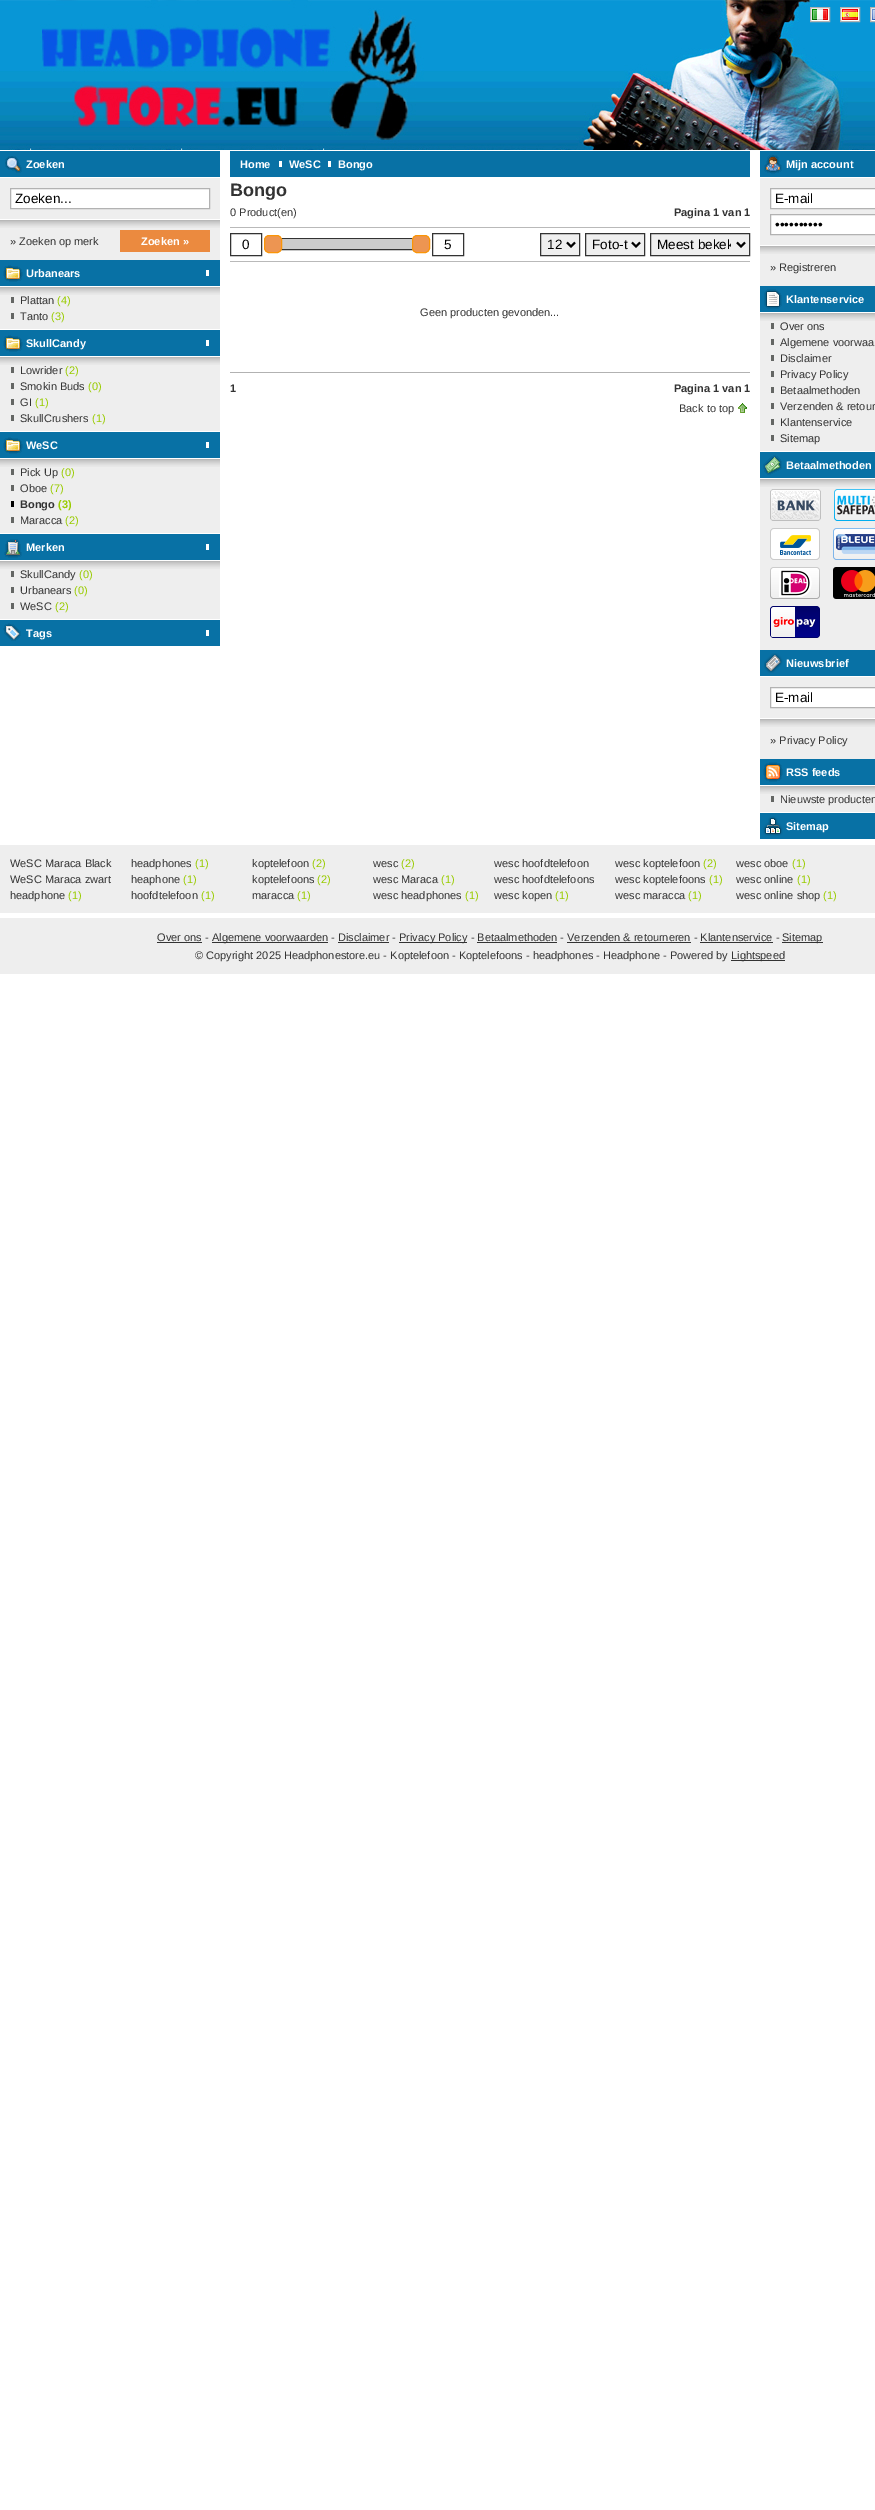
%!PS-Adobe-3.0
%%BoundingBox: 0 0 875 2510
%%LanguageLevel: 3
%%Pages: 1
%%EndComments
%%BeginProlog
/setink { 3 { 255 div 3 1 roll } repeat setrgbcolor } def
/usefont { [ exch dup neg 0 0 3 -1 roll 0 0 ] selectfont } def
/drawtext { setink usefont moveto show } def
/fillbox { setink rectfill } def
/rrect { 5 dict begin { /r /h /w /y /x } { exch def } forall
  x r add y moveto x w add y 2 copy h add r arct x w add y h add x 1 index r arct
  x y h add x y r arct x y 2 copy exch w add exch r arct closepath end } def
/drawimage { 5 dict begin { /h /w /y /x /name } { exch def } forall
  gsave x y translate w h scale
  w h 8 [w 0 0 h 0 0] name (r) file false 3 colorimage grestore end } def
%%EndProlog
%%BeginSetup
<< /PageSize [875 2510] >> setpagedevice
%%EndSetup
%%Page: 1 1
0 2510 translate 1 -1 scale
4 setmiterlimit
0 0 875 2510 255 255 255 fillbox
(assets/img1.rgb) 0 0 875 150 drawimage
810.5 7.5 moveto 829.5 7.5 lineto 829.5 21.5 lineto 810.5 21.5 lineto closepath gsave fill grestore
178 178 178 setink
stroke
(assets/img2.rgb) 812 9 16 11 drawimage
255 255 255 setink
840.5 7.5 moveto 859.5 7.5 lineto 859.5 21.5 lineto 840.5 21.5 lineto closepath gsave fill grestore
178 178 178 setink
stroke
(assets/img3.rgb) 842 9 16 11 drawimage
255 255 255 setink
870.5 7.5 moveto 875.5 7.5 lineto 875.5 21.5 lineto 870.5 21.5 lineto closepath gsave fill grestore
178 178 178 setink
stroke
(assets/img4.rgb) 872 9 3 11 drawimage
0 151 220 26 8 113 165 fillbox
(assets/img5.rgb) 5 156 17 17 drawimage
(Zoeken) 26 168 /LiberationSans-Bold 11 255 255 255 drawtext
0 178 220 82 238 238 238 fillbox
0 219 220 1 255 255 255 fillbox
10.5 188.5 moveto 209.5 188.5 lineto 209.5 208.5 lineto 10.5 208.5 lineto closepath gsave fill grestore
178 178 178 setink
stroke
(Zoeken...) 15 203 /LiberationSans-Regular 13.5 0 0 0 drawtext
(assets/img6.rgb) 0 220 220 8 drawimage
(» Zoeken op merk) 10 245 /LiberationSans-Regular 11 51 51 51 drawtext
120 230 90 22 235 138 63 fillbox
(Zoeken ») 141 245 /LiberationSans-Bold 11 255 255 255 drawtext
0 260 220 26 8 113 165 fillbox
(assets/img7.rgb) 3 265 20 17 drawimage
206 270 3 6 255 255 255 fillbox
(Urbanears) 26 277 /LiberationSans-Bold 11 255 255 255 drawtext
0 287 220 42 238 238 238 fillbox
(assets/img6.rgb) 0 287 220 8 drawimage
11 297 3 6 100 102 100 fillbox
(Plattan) 20 304 /LiberationSans-Regular 11 51 51 51 drawtext
(\(4\)) 57 304 /LiberationSans-Regular 11 153 204 0 drawtext
11 313 3 6 100 102 100 fillbox
(Tanto) 20 320 /LiberationSans-Regular 11 51 51 51 drawtext
(\(3\)) 51 320 /LiberationSans-Regular 11 153 204 0 drawtext
0 330 220 26 8 113 165 fillbox
(assets/img7.rgb) 3 335 20 17 drawimage
206 340 3 6 255 255 255 fillbox
(SkullCandy) 26 347 /LiberationSans-Bold 11 255 255 255 drawtext
0 357 220 74 238 238 238 fillbox
(assets/img6.rgb) 0 357 220 8 drawimage
11 367 3 6 100 102 100 fillbox
(Lowrider) 20 374 /LiberationSans-Regular 11 51 51 51 drawtext
(\(2\)) 65 374 /LiberationSans-Regular 11 153 204 0 drawtext
11 383 3 6 100 102 100 fillbox
(Smokin Buds) 20 390 /LiberationSans-Regular 11 51 51 51 drawtext
(\(0\)) 88 390 /LiberationSans-Regular 11 153 204 0 drawtext
11 399 3 6 100 102 100 fillbox
(GI) 20 406 /LiberationSans-Regular 11 51 51 51 drawtext
(\(1\)) 35 406 /LiberationSans-Regular 11 153 204 0 drawtext
11 415 3 6 100 102 100 fillbox
(SkullCrushers) 20 422 /LiberationSans-Regular 11 51 51 51 drawtext
(\(1\)) 92 422 /LiberationSans-Regular 11 153 204 0 drawtext
0 432 220 26 8 113 165 fillbox
(assets/img7.rgb) 3 437 20 17 drawimage
206 442 3 6 255 255 255 fillbox
(WeSC) 26 449 /LiberationSans-Bold 11 255 255 255 drawtext
0 459 220 74 238 238 238 fillbox
(assets/img6.rgb) 0 459 220 8 drawimage
11 469 3 6 100 102 100 fillbox
(Pick Up) 20 476 /LiberationSans-Regular 11 51 51 51 drawtext
(\(0\)) 61 476 /LiberationSans-Regular 11 153 204 0 drawtext
11 485 3 6 100 102 100 fillbox
(Oboe) 20 492 /LiberationSans-Regular 11 51 51 51 drawtext
(\(7\)) 50 492 /LiberationSans-Regular 11 153 204 0 drawtext
11 501 3 6 0 0 0 fillbox
(Bongo) 20 508 /LiberationSans-Bold 11 51 51 51 drawtext
(\(3\)) 58 508 /LiberationSans-Bold 11 153 204 0 drawtext
11 517 3 6 100 102 100 fillbox
(Maracca) 20 524 /LiberationSans-Regular 11 51 51 51 drawtext
(\(2\)) 65 524 /LiberationSans-Regular 11 153 204 0 drawtext
0 534 220 26 8 113 165 fillbox
(assets/img8.rgb) 4 539 18 19 drawimage
206 544 3 6 255 255 255 fillbox
(Merken) 26 551 /LiberationSans-Bold 11 255 255 255 drawtext
0 561 220 58 238 238 238 fillbox
(assets/img6.rgb) 0 561 220 8 drawimage
11 571 3 6 100 102 100 fillbox
(SkullCandy) 20 578 /LiberationSans-Regular 11 51 51 51 drawtext
(\(0\)) 79 578 /LiberationSans-Regular 11 153 204 0 drawtext
11 587 3 6 100 102 100 fillbox
(Urbanears) 20 594 /LiberationSans-Regular 11 51 51 51 drawtext
(\(0\)) 74 594 /LiberationSans-Regular 11 153 204 0 drawtext
11 603 3 6 100 102 100 fillbox
(WeSC) 20 610 /LiberationSans-Regular 11 51 51 51 drawtext
(\(2\)) 55 610 /LiberationSans-Regular 11 153 204 0 drawtext
0 620 220 26 8 113 165 fillbox
(assets/img9.rgb) 3 623 18 18 drawimage
206 630 3 6 255 255 255 fillbox
(Tags) 26 637 /LiberationSans-Bold 11 255 255 255 drawtext
230 151 520 26 8 113 165 fillbox
(Home) 240 168 /LiberationSans-Bold 11 255 255 255 drawtext
279 161 3 6 255 255 255 fillbox
(WeSC) 289 168 /LiberationSans-Bold 11 255 255 255 drawtext
328 161 3 6 255 255 255 fillbox
(Bongo) 338 168 /LiberationSans-Bold 11 255 255 255 drawtext
(Bongo) 230 196 /LiberationSans-Bold 18 51 51 51 drawtext
(0 Product\(en\)) 230 216 /LiberationSans-Regular 11 51 51 51 drawtext
(Pagina 1 van 1) 674 216 /LiberationSans-Bold 11 51 51 51 drawtext
230 227 520 1 185 185 185 fillbox
230 261 520 1 185 185 185 fillbox
51 51 51 setink
230.5 233.5 31 22 rectstroke
(0) 242 249 /LiberationSans-Regular 13.5 0 0 0 drawtext
51 51 51 setink
272.5 238.5 149 11 rectstroke
281 239 132 10 204 204 204 fillbox
237 149 82 setink
264.5 235.5 17 17 4.5 rrect gsave fill grestore
250 149 7 setink
stroke
237 149 82 setink
412.5 235.5 17 17 4.5 rrect gsave fill grestore
250 149 7 setink
stroke
51 51 51 setink
432.5 233.5 31 22 rectstroke
(5) 444 249 /LiberationSans-Regular 13.5 0 0 0 drawtext
239 239 239 setink
540.5 233.5 moveto 579.5 233.5 lineto 579.5 255.5 lineto 540.5 255.5 lineto closepath gsave fill grestore
51 51 51 setink
stroke
0 0 0 setink
2 setlinewidth
567 242.5 moveto 571 246.5 lineto 575 242.5 lineto stroke
(12) 547 249 /LiberationSans-Regular 13.5 0 0 0 drawtext
239 239 239 setink
585.5 233.5 moveto 644.5 233.5 lineto 644.5 255.5 lineto 585.5 255.5 lineto closepath gsave fill grestore
51 51 51 setink
1 setlinewidth
stroke
0 0 0 setink
2 setlinewidth
632 242.5 moveto 636 246.5 lineto 640 242.5 lineto stroke
(Foto-t) 592 249 /LiberationSans-Regular 13.5 0 0 0 drawtext
239 239 239 setink
650.5 233.5 moveto 749.5 233.5 lineto 749.5 255.5 lineto 650.5 255.5 lineto closepath gsave fill grestore
51 51 51 setink
1 setlinewidth
stroke
0 0 0 setink
2 setlinewidth
737 242.5 moveto 741 246.5 lineto 745 242.5 lineto stroke
gsave
657 236 74 17 rectclip
(Meest bekek) 657 249 /LiberationSans-Regular 13.5 0 0 0 drawtext
grestore
(Geen producten gevonden...) 420 316 /LiberationSans-Regular 11 51 51 51 drawtext
230 372 520 1 178 178 178 fillbox
(1) 230 392 /LiberationSans-Bold 11 51 51 51 drawtext
(Pagina 1 van 1) 674 392 /LiberationSans-Bold 11 51 51 51 drawtext
(assets/img10.rgb) 738 403 9 10 drawimage
(Back to top) 679 412 /LiberationSans-Regular 11 51 51 51 drawtext
760 151 115 26 8 113 165 fillbox
(assets/img11.rgb) 764 155 18 19 drawimage
(Mijn account) 786 168 /LiberationSans-Bold 11 255 255 255 drawtext
760 178 115 108 238 238 238 fillbox
760 245 115 1 255 255 255 fillbox
770.5 188.5 moveto 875.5 188.5 lineto 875.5 208.5 lineto 770.5 208.5 lineto closepath gsave fill grestore
178 178 178 setink
1 setlinewidth
stroke
(E-mail) 775 203 /LiberationSans-Regular 13.5 0 0 0 drawtext
255 255 255 setink
770.5 214.5 moveto 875.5 214.5 lineto 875.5 234.5 lineto 770.5 234.5 lineto closepath gsave fill grestore
178 178 178 setink
stroke
(••••••••••) 775 229 /LiberationSans-Regular 13.5 0 0 0 drawtext
(assets/img12.rgb) 760 246 115 8 drawimage
(» Registreren) 770 271 /LiberationSans-Regular 11 51 51 51 drawtext
760 286 115 26 8 113 165 fillbox
(assets/img13.rgb) 764 289 18 20 drawimage
(Klantenservice) 786 303 /LiberationSans-Bold 11 255 255 255 drawtext
760 313 115 138 238 238 238 fillbox
(assets/img12.rgb) 760 313 115 8 drawimage
771 323 3 6 100 102 100 fillbox
(Over ons) 780 330 /LiberationSans-Regular 11 51 51 51 drawtext
771 339 3 6 100 102 100 fillbox
(Algemene voorwaa) 780 346 /LiberationSans-Regular 11 51 51 51 drawtext
771 355 3 6 100 102 100 fillbox
(Disclaimer) 780 362 /LiberationSans-Regular 11 51 51 51 drawtext
771 371 3 6 100 102 100 fillbox
(Privacy Policy) 780 378 /LiberationSans-Regular 11 51 51 51 drawtext
771 387 3 6 100 102 100 fillbox
(Betaalmethoden) 780 394 /LiberationSans-Regular 11 51 51 51 drawtext
771 403 3 6 100 102 100 fillbox
(Verzenden & retour) 780 410 /LiberationSans-Regular 11 51 51 51 drawtext
771 419 3 6 100 102 100 fillbox
(Klantenservice) 780 426 /LiberationSans-Regular 11 51 51 51 drawtext
771 435 3 6 100 102 100 fillbox
(Sitemap) 780 442 /LiberationSans-Regular 11 51 51 51 drawtext
760 452 115 26 8 113 165 fillbox
(assets/img14.rgb) 763 455 19 20 drawimage
(Betaalmethoden) 786 469 /LiberationSans-Bold 11 255 255 255 drawtext
760 479 115 171 238 238 238 fillbox
(assets/img12.rgb) 760 479 115 8 drawimage
(assets/img15.rgb) 770 489 51 32 drawimage
(assets/img16.rgb) 834 489 41 32 drawimage
(assets/img17.rgb) 770 528 50 32 drawimage
(assets/img18.rgb) 833 528 42 32 drawimage
(assets/img19.rgb) 770 567 50 32 drawimage
(assets/img20.rgb) 833 567 42 32 drawimage
(assets/img21.rgb) 770 606 50 32 drawimage
760 650 115 26 8 113 165 fillbox
(assets/img22.rgb) 764 653 19 20 drawimage
(Nieuwsbrief) 786 667 /LiberationSans-Bold 11 255 255 255 drawtext
760 677 115 82 238 238 238 fillbox
760 718 115 1 255 255 255 fillbox
770.5 687.5 moveto 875.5 687.5 lineto 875.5 707.5 lineto 770.5 707.5 lineto closepath gsave fill grestore
178 178 178 setink
stroke
(E-mail) 775 702 /LiberationSans-Regular 13.5 0 0 0 drawtext
(assets/img12.rgb) 760 719 115 8 drawimage
(» Privacy Policy) 770 744 /LiberationSans-Regular 11 51 51 51 drawtext
760 759 115 26 8 113 165 fillbox
(assets/img23.rgb) 763 762 20 20 drawimage
(RSS feeds) 786 776 /LiberationSans-Bold 11 255 255 255 drawtext
760 786 115 26 238 238 238 fillbox
(assets/img12.rgb) 760 786 115 8 drawimage
771 796 3 6 100 102 100 fillbox
(Nieuwste producten) 780 803 /LiberationSans-Regular 11 51 51 51 drawtext
760 813 115 26 8 113 165 fillbox
(assets/img24.rgb) 763 816 20 20 drawimage
(Sitemap) 786 830 /LiberationSans-Bold 11 255 255 255 drawtext
0 845 875 68 238 238 238 fillbox
(WeSC Maraca Black) 10 867 /LiberationSans-Regular 11 51 51 51 drawtext
(WeSC Maraca zwart) 10 883 /LiberationSans-Regular 11 51 51 51 drawtext
(headphone) 10 899 /LiberationSans-Regular 11 51 51 51 drawtext
(\(1\)) 68 899 /LiberationSans-Regular 11 153 204 0 drawtext
(headphones) 131 867 /LiberationSans-Regular 11 51 51 51 drawtext
(\(1\)) 195 867 /LiberationSans-Regular 11 153 204 0 drawtext
(heaphone) 131 883 /LiberationSans-Regular 11 51 51 51 drawtext
(\(1\)) 183 883 /LiberationSans-Regular 11 153 204 0 drawtext
(hoofdtelefoon) 131 899 /LiberationSans-Regular 11 51 51 51 drawtext
(\(1\)) 201 899 /LiberationSans-Regular 11 153 204 0 drawtext
(koptelefoon) 252 867 /LiberationSans-Regular 11 51 51 51 drawtext
(\(2\)) 312 867 /LiberationSans-Regular 11 153 204 0 drawtext
(koptelefoons) 252 883 /LiberationSans-Regular 11 51 51 51 drawtext
(\(2\)) 317 883 /LiberationSans-Regular 11 153 204 0 drawtext
(maracca) 252 899 /LiberationSans-Regular 11 51 51 51 drawtext
(\(1\)) 297 899 /LiberationSans-Regular 11 153 204 0 drawtext
(wesc) 373 867 /LiberationSans-Regular 11 51 51 51 drawtext
(\(2\)) 401 867 /LiberationSans-Regular 11 153 204 0 drawtext
(wesc Maraca) 373 883 /LiberationSans-Regular 11 51 51 51 drawtext
(\(1\)) 441 883 /LiberationSans-Regular 11 153 204 0 drawtext
(wesc headphones) 373 899 /LiberationSans-Regular 11 51 51 51 drawtext
(\(1\)) 465 899 /LiberationSans-Regular 11 153 204 0 drawtext
(wesc hoofdtelefoon) 494 867 /LiberationSans-Regular 11 51 51 51 drawtext
(wesc hoofdtelefoons) 494 883 /LiberationSans-Regular 11 51 51 51 drawtext
(wesc kopen) 494 899 /LiberationSans-Regular 11 51 51 51 drawtext
(\(1\)) 555 899 /LiberationSans-Regular 11 153 204 0 drawtext
(wesc koptelefoon) 615 867 /LiberationSans-Regular 11 51 51 51 drawtext
(\(2\)) 703 867 /LiberationSans-Regular 11 153 204 0 drawtext
(wesc koptelefoons) 615 883 /LiberationSans-Regular 11 51 51 51 drawtext
(\(1\)) 709 883 /LiberationSans-Regular 11 153 204 0 drawtext
(wesc maracca) 615 899 /LiberationSans-Regular 11 51 51 51 drawtext
(\(1\)) 688 899 /LiberationSans-Regular 11 153 204 0 drawtext
(wesc oboe) 736 867 /LiberationSans-Regular 11 51 51 51 drawtext
(\(1\)) 792 867 /LiberationSans-Regular 11 153 204 0 drawtext
(wesc online) 736 883 /LiberationSans-Regular 11 51 51 51 drawtext
(\(1\)) 797 883 /LiberationSans-Regular 11 153 204 0 drawtext
(wesc online shop) 736 899 /LiberationSans-Regular 11 51 51 51 drawtext
(\(1\)) 823 899 /LiberationSans-Regular 11 153 204 0 drawtext
0 918 875 56 238 238 238 fillbox
(Over ons -) 157 941 /LiberationSans-Regular 11 51 51 51 drawtext
157 942 45 1 51 51 51 fillbox
212 942 116 1 51 51 51 fillbox
(Algemene voorwaarden - Disclaimer -) 212 941 /LiberationSans-Regular 11 51 51 51 drawtext
399 942 68 1 51 51 51 fillbox
(Privacy Policy - Betaalmethoden - Verzenden & retourneren - Klantenservice -) 399 941 /LiberationSans-Regular 11 51 51 51 drawtext
782 942 41 1 51 51 51 fillbox
(Sitemap) 782 941 /LiberationSans-Regular 11 51 51 51 drawtext
338 942 51 1 51 51 51 fillbox
477 942 80 1 51 51 51 fillbox
567 942 124 1 51 51 51 fillbox
700 942 73 1 51 51 51 fillbox
(© Copyright 2025 Headphonestore.eu - Koptelefoon - Koptelefoons - headphones - Headphone - Powered by) 195 959 /LiberationSans-Regular 11 51 51 51 drawtext
731 960 54 1 51 51 51 fillbox
(Lightspeed) 731 959 /LiberationSans-Regular 11 51 51 51 drawtext
showpage
%%EOF
